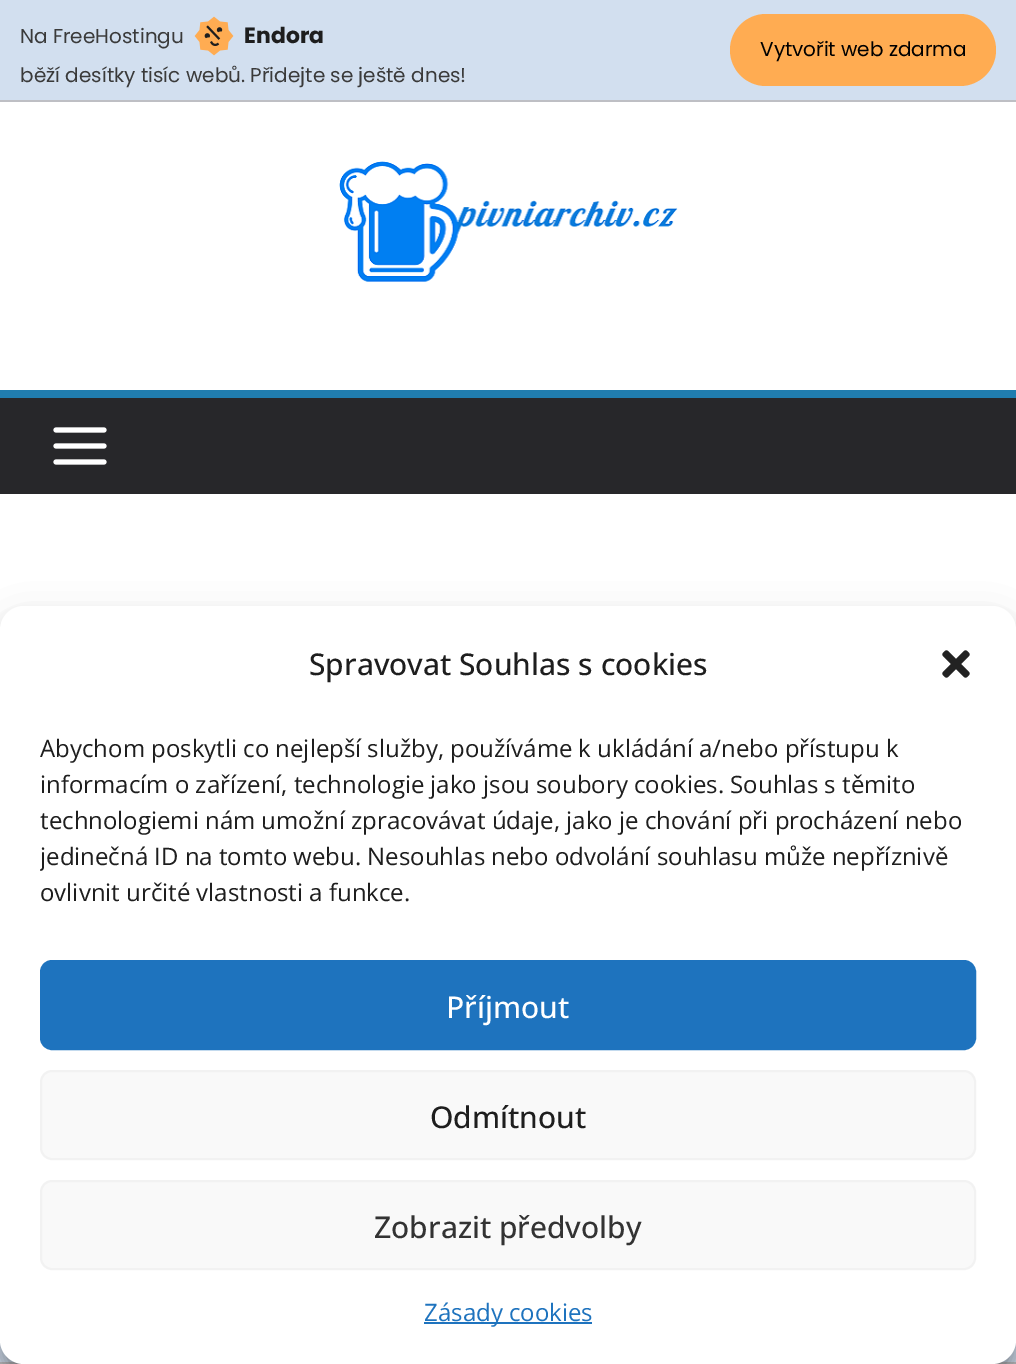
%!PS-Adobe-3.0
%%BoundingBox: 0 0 1016 1364
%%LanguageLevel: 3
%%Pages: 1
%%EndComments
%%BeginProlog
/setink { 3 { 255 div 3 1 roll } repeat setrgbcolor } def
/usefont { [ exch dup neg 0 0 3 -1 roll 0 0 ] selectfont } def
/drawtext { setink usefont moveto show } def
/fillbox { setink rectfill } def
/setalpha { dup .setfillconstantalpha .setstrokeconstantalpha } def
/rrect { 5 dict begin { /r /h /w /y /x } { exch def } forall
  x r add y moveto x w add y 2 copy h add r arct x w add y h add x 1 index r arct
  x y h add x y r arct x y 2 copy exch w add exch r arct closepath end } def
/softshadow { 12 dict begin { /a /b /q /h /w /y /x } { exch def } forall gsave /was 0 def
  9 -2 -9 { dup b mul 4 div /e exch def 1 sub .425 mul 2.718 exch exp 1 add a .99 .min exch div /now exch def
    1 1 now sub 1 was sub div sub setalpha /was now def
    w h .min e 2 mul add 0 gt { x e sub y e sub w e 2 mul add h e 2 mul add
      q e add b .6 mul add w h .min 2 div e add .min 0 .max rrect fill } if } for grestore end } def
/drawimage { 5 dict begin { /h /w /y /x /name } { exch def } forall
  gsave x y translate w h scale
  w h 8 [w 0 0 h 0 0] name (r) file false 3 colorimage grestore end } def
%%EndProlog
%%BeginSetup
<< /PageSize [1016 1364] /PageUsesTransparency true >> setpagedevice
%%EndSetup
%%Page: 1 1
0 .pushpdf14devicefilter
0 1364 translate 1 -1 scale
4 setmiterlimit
0 0 1016 1364 210 223 239 fillbox
0 100 1016 2 190 191 196 fillbox
(Na FreeHostingu) 20 43 /Poppins-Regular 20 58 58 58 drawtext
(assets/img1.rgb) 194 16 40 40 drawimage
(Endora) 244 43 /Poppins-Bold 22 30 30 30 drawtext
(běží desítky tisíc webů. Přidejte se ještě dnes!) 20 82 /Poppins-Regular 20 58 58 58 drawtext
255 172 82 setink
730 14 266 72 36 rrect fill
(Vytvořit web zdarma) 760 56 /Poppins-Regular 20 0 0 0 drawtext
0 102 1016 288 255 255 255 fillbox
(assets/img2.rgb) 339 161 339 121 drawimage
0 398 1016 96 39 39 42 fillbox
0 390 1016 8 32 125 175 fillbox
(assets/img3.rgb) 53 427 54 38 drawimage
0 494 1016 136 255 255 255 fillbox
0 1362 1016 2 190 191 196 fillbox
0 0 0 setink
0 618 1016 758 24 6 0.23 softshadow
0 626 1016 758 24 20 0.19 softshadow
255 255 255 setink
0 606 1016 758 24 rrect fill
(Spravovat Souhlas s cookies) 309 675 /OpenSans-Medium 30 30 30 30 drawtext
(assets/img4.rgb) 942 650 28 28 drawimage
(Abychom poskytli co nejlepší služby, používáme k ukládání a/nebo přístupu k) 40 757 /OpenSans-Regular 24 30 30 30 drawtext
(informacím o zařízení, technologie jako jsou soubory cookies. Souhlas s těmito) 40 793 /OpenSans-Regular 24 30 30 30 drawtext
(technologiemi nám umožní zpracovávat údaje, jako je chování při procházení nebo) 40 829 /OpenSans-Regular 24 30 30 30 drawtext
gsave
40 730 936 190 rectclip
(jedinečná ID na tomto webu. Nesouhlas nebo odvolání souhlasu může nepříznivě) 40 865 /OpenSans-Regular 24 30 30 30 drawtext
grestore
(ovlivnit určité vlastnosti a funkce.) 40 901 /OpenSans-Regular 24 30 30 30 drawtext
30 115 190 setink
41 961 934 88 11 rrect gsave fill grestore
2 setlinewidth
stroke
(Příjmout) 446 1018 /OpenSans-Medium 30 255 255 255 drawtext
249 249 249 setink
41 1071 934 88 11 rrect gsave fill grestore
242 242 242 setink
stroke
(Odmítnout) 430 1128 /OpenSans-Medium 30 30 30 30 drawtext
249 249 249 setink
41 1181 934 88 11 rrect gsave fill grestore
242 242 242 setink
stroke
(Zobrazit předvolby) 374 1238 /OpenSans-Medium 30 51 51 51 drawtext
424 1322 168 2 30 115 190 fillbox
(Zásady cookies) 424 1321 /OpenSans-Regular 24 30 115 190 drawtext
.poppdf14devicefilter showpage
%%EOF
